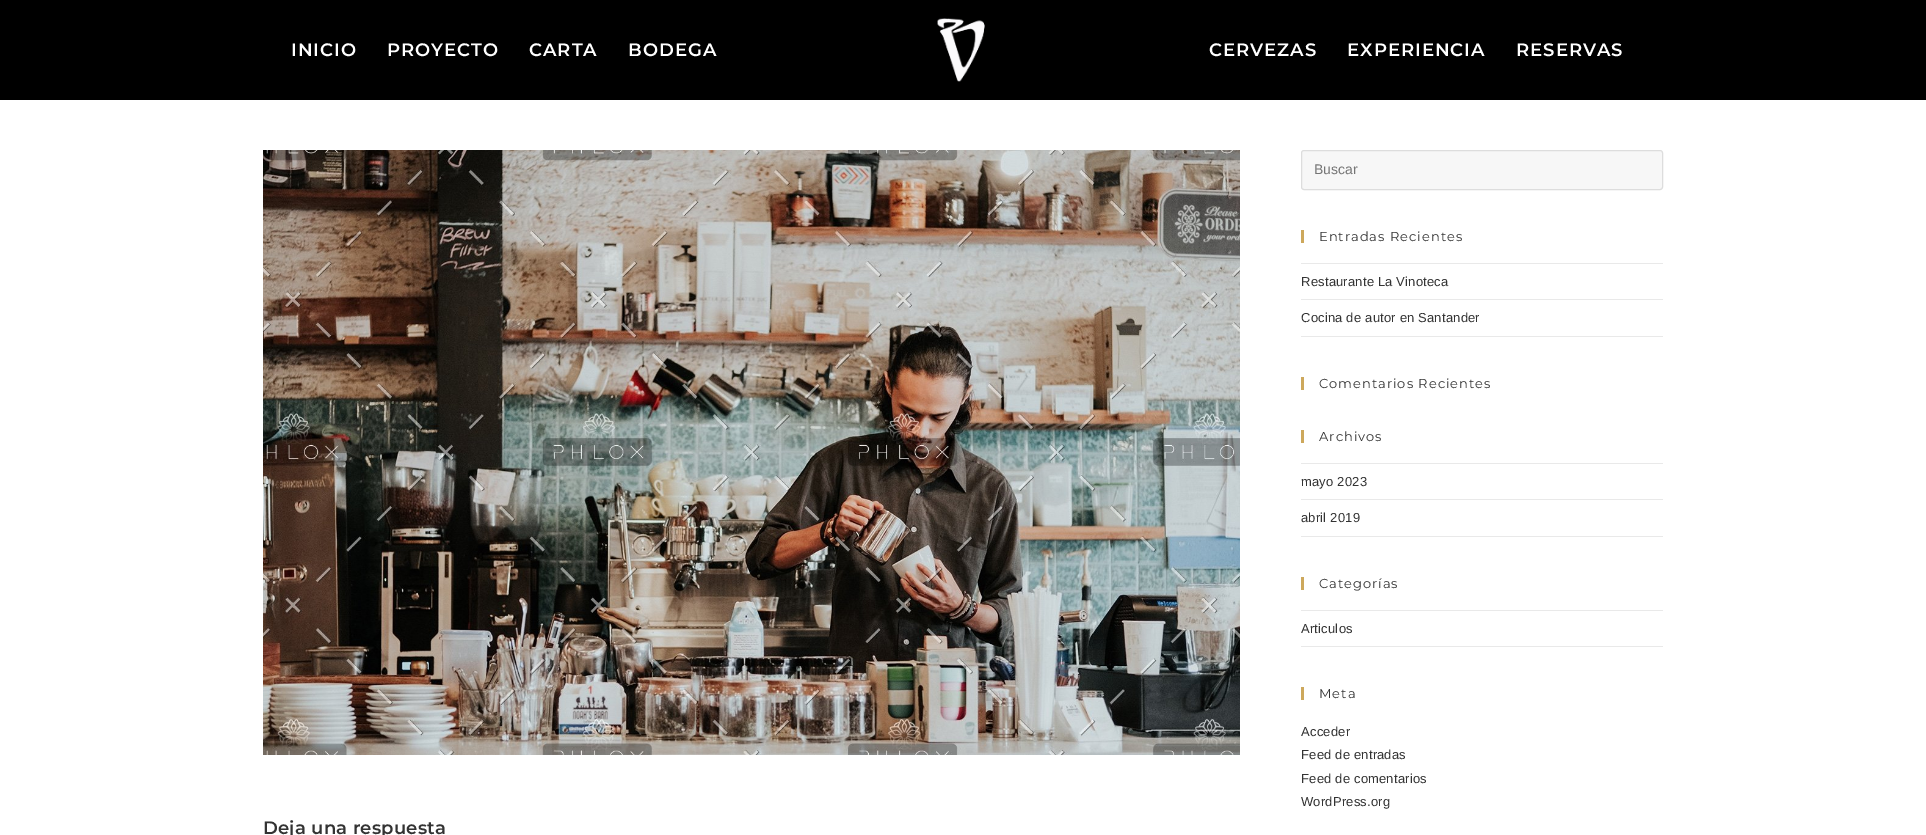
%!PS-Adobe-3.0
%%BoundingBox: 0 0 1926 835
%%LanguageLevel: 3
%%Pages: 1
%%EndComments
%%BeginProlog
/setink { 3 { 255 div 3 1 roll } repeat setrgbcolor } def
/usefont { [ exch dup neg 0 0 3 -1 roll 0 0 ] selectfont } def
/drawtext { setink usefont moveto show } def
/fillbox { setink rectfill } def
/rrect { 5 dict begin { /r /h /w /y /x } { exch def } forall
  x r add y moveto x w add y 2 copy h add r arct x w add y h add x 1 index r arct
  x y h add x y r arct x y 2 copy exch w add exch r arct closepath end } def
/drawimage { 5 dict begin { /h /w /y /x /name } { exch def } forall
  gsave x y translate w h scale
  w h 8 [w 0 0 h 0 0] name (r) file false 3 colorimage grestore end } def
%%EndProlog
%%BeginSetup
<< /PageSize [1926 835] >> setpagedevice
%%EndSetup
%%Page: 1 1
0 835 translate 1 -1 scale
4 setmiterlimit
0 0 1926 835 255 255 255 fillbox
0 0 1926 100 0 0 0 fillbox
/Montserrat-SemiBold 18 usefont
255 255 255 setink
291 56 moveto 1 0 (INICIO) ashow
387 56 moveto 1 0 (PROYECTO) ashow
529 56 moveto 1 0 (CARTA) ashow
628 56 moveto 1 0 (BODEGA) ashow
(assets/img1.rgb) 937 18 48 64 drawimage
1209 56 moveto 1 0 (CERVEZAS) ashow
1347 56 moveto 1 0 (EXPERIENCIA) ashow
1516 56 moveto 1 0 (RESERVAS) ashow
247 247 247 setink
1301.5 150.5 361 39 2.5 rrect gsave fill grestore
221 221 221 setink
stroke
(Buscar) 1314 174 /LiberationSans-Regular 14 117 117 117 drawtext
1301 230 3 13 205 168 92 fillbox
/Montserrat-Regular 13 usefont
51 51 51 setink
1319 241 moveto 1 0 (Entradas Recientes) ashow
1301 263 362 1 233 233 233 fillbox
1301 299 362 1 233 233 233 fillbox
/LiberationSans-Regular 13 usefont
51 51 51 setink
1301 286 moveto 0.2 0 (Restaurante La Vinoteca) ashow
1301 336 362 1 233 233 233 fillbox
51 51 51 setink
1301 322 moveto 0.2 0 (Cocina de autor en Santander) ashow
1301 377 3 13 205 168 92 fillbox
/Montserrat-Regular 13 usefont
51 51 51 setink
1319 388 moveto 1 0 (Comentarios Recientes) ashow
1301 430 3 13 205 168 92 fillbox
51 51 51 setink
1319 441 moveto 1 0 (Archivos) ashow
1301 463 362 1 233 233 233 fillbox
1301 499 362 1 233 233 233 fillbox
/LiberationSans-Regular 13 usefont
51 51 51 setink
1301 486 moveto 0.2 0 (mayo 2023) ashow
1301 536 362 1 233 233 233 fillbox
51 51 51 setink
1301 522 moveto 0.2 0 (abril 2019) ashow
1301 577 3 13 205 168 92 fillbox
/Montserrat-Regular 13 usefont
51 51 51 setink
1319 588 moveto 1 0 (Categorías) ashow
1301 610 362 1 233 233 233 fillbox
1301 646 362 1 233 233 233 fillbox
/LiberationSans-Regular 13 usefont
51 51 51 setink
1301 633 moveto 0.2 0 (Articulos) ashow
1301 687 3 13 205 168 92 fillbox
/Montserrat-Regular 13 usefont
51 51 51 setink
1319 698 moveto 1 0 (Meta) ashow
/LiberationSans-Regular 13 usefont
1301 736 moveto 0.2 0 (Acceder) ashow
1301 759 moveto 0.2 0 (Feed de entradas) ashow
1301 783 moveto 0.2 0 (Feed de comentarios) ashow
1301 806 moveto 0.2 0 (WordPress.org) ashow
(assets/img2.rgb) 263 150 977 605 drawimage
/Montserrat-SemiBold 18 usefont
263 834 moveto 0.2 0 (Deja una respuesta) ashow
showpage
%%EOF
